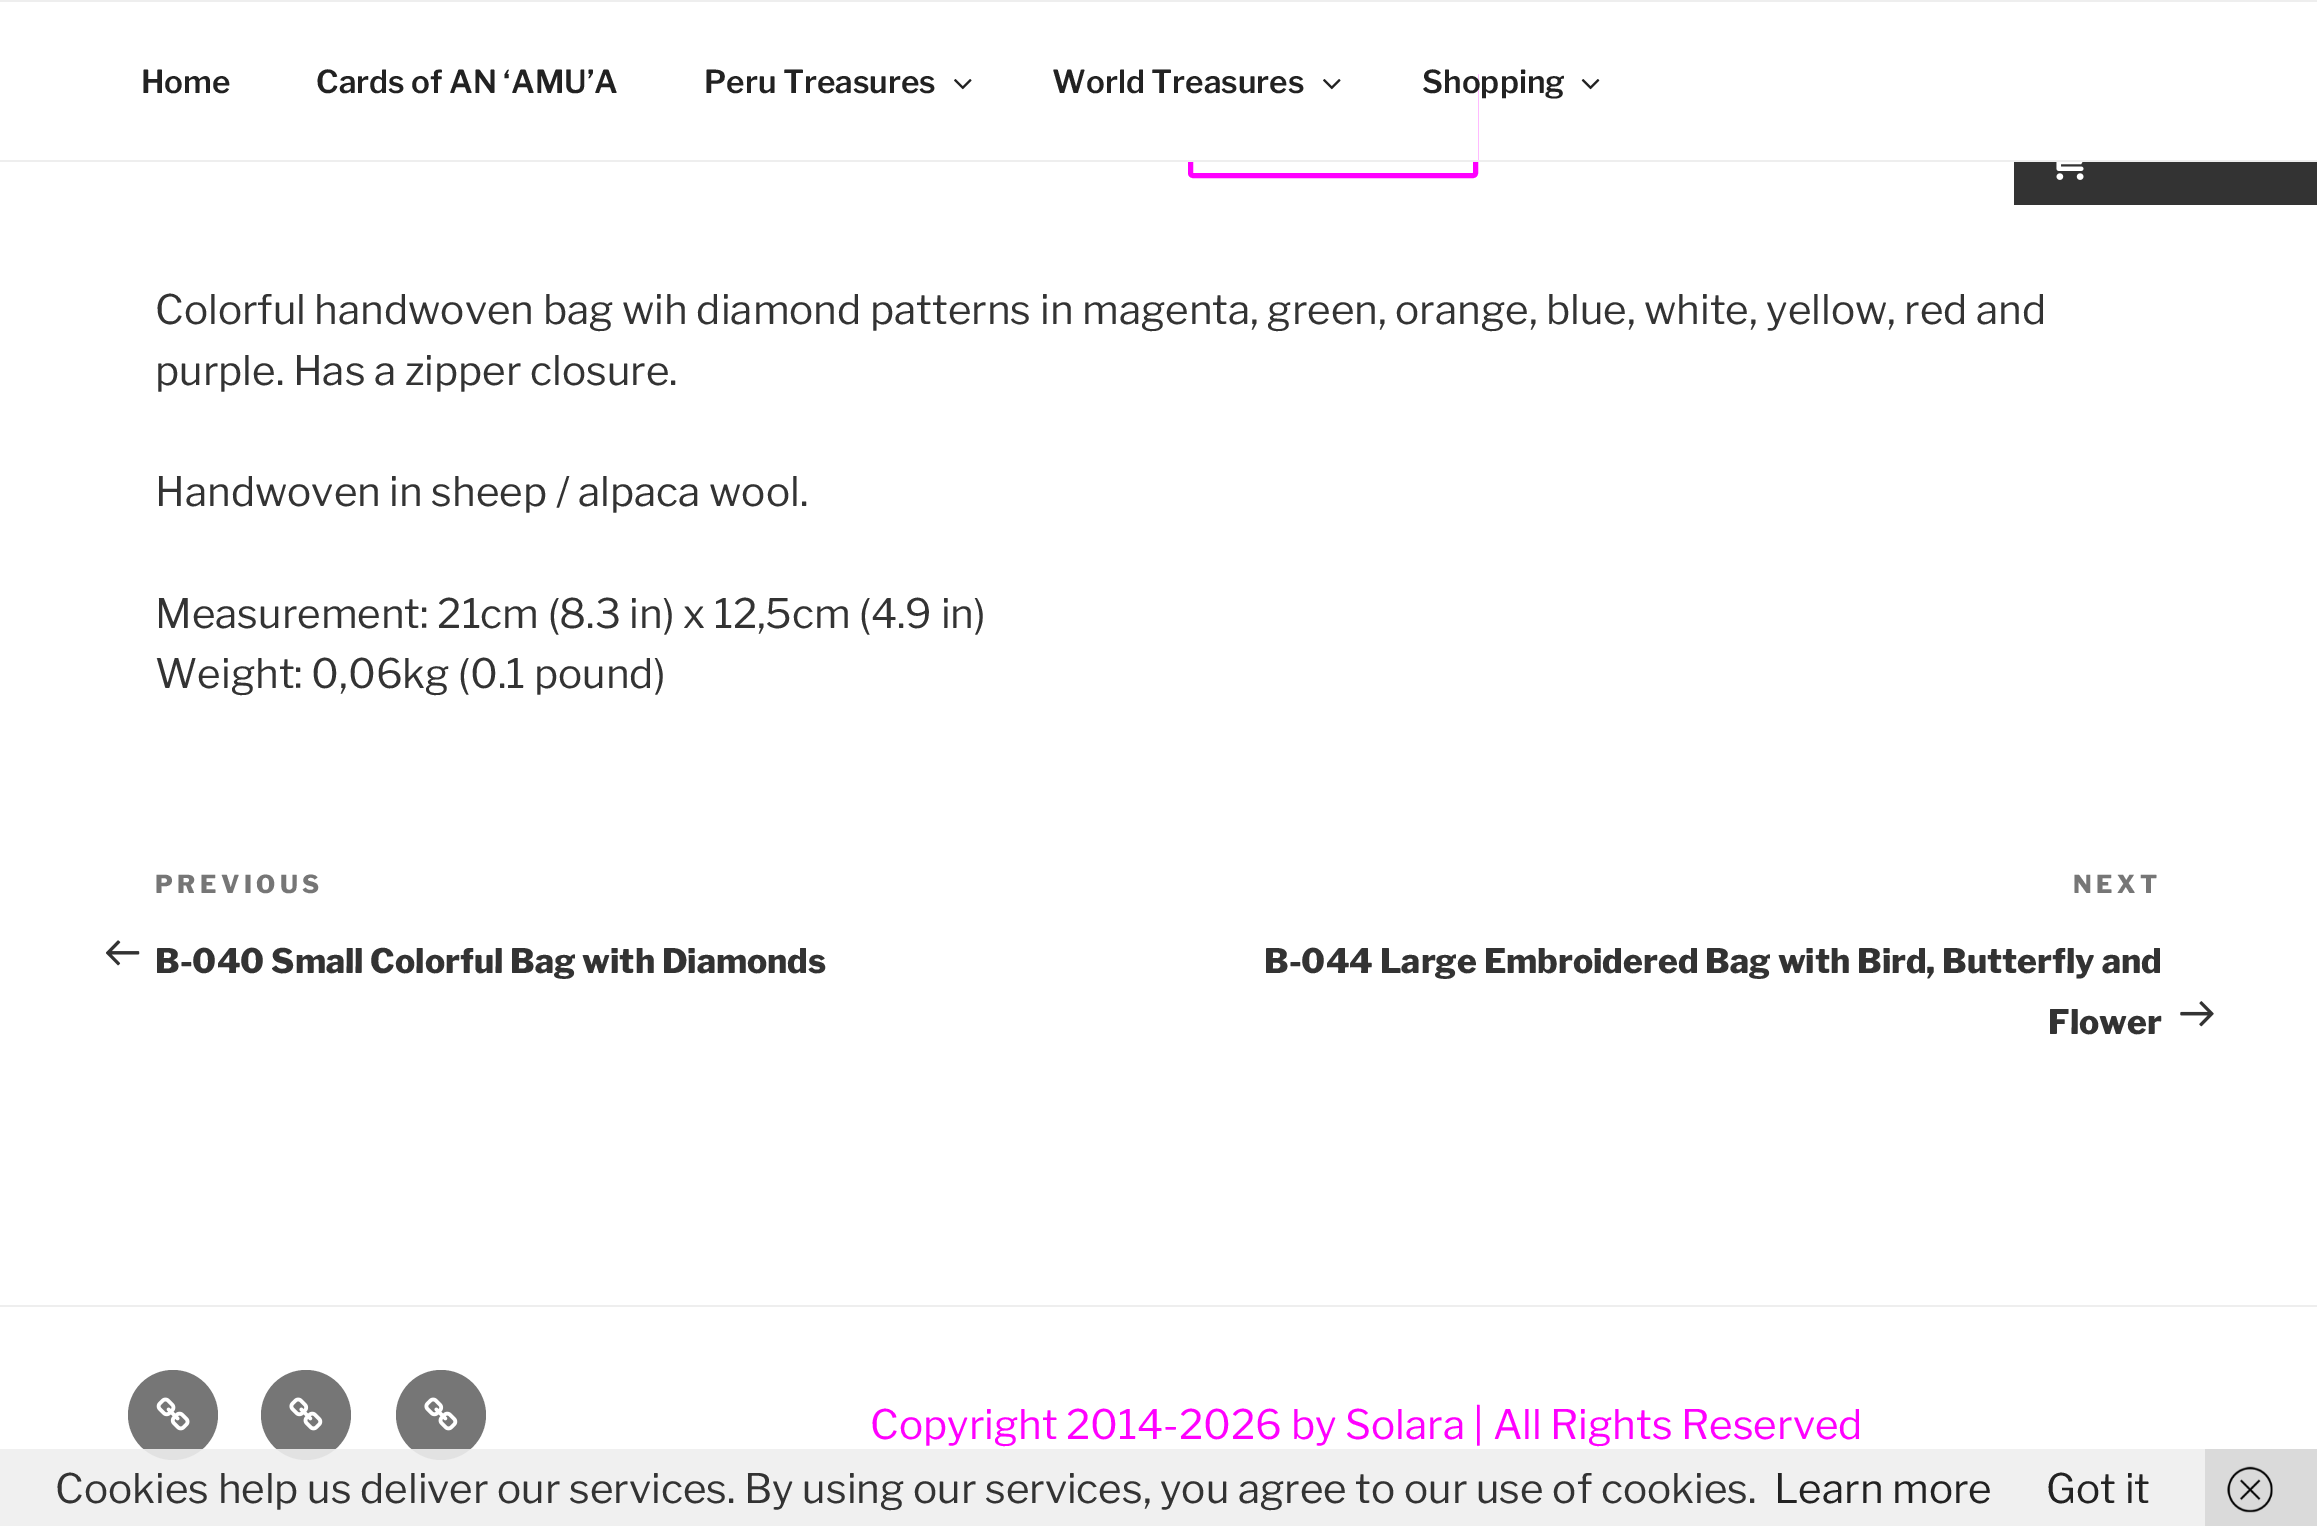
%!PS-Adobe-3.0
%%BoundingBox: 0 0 2317 1526
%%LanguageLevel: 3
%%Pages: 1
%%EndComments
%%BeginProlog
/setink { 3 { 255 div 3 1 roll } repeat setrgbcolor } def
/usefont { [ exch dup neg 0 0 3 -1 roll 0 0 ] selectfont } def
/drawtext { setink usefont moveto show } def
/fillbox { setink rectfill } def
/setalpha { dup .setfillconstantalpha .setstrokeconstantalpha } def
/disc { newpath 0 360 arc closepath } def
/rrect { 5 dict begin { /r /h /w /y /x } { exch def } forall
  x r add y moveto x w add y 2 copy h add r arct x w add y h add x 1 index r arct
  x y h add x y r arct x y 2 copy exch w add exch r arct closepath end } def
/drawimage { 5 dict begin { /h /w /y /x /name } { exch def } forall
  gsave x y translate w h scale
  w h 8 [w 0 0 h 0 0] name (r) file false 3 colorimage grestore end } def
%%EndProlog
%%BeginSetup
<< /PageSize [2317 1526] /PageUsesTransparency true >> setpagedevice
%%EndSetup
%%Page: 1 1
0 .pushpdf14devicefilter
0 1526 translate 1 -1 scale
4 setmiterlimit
0 0 2317 1526 255 255 255 fillbox
255 0 255 setink
5 setlinewidth
1190.5 72.5 285 103 2.5 rrect stroke
1188 70 290 90 255 255 255 fillbox
0 0 2317 2 238 238 238 fillbox
0 160 2317 2 238 238 238 fillbox
(Home) 141 93 /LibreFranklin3-Thin 31.5 34 34 34 drawtext
(Cards of AN ‘AMU’A) 316 93 /LibreFranklin3-Thin 31.5 34 34 34 drawtext
(Peru Treasures) 704 93 /LibreFranklin3-Thin 31.5 34 34 34 drawtext
(assets/img1.rgb) 954 79 18 11 drawimage
(World Treasures) 1052 93 /LibreFranklin3-Thin 31.5 34 34 34 drawtext
(assets/img1.rgb) 1323 79 18 11 drawimage
(Shopping) 1422 93 /LibreFranklin3-Thin 31.5 34 34 34 drawtext
(assets/img2.rgb) 1581 79 19 11 drawimage
(Colorful handwoven bag wih diamond patterns in magenta, green, orange, blue, white, yellow, red and) 155 324 /LibreFranklin-Thin 40.5 51 51 51 drawtext
(purple. Has a zipper closure.) 155 385 /LibreFranklin-Thin 40.5 51 51 51 drawtext
(Handwoven in sheep / alpaca wool.) 155 506 /LibreFranklin-Thin 40.5 51 51 51 drawtext
(Measurement: 21cm \(8.3 in\) x 12,5cm \(4.9 in\)) 155 628 /LibreFranklin-Thin 40.5 51 51 51 drawtext
(Weight: 0,06kg \(0.1 pound\)) 155 688 /LibreFranklin-Thin 40.5 51 51 51 drawtext
/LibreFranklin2-Thin 24.75 usefont
118 118 118 setink
155 893 moveto 4.5 0 (PREVIOUS) ashow
(assets/img3.rgb) 106 940 34 26 drawimage
(B-040 Small Colorful Bag with Diamonds) 155 973 /LibreFranklin2-Thin 33.75 51 51 51 drawtext
/LibreFranklin2-Thin 24.75 usefont
118 118 118 setink
2073 893 moveto 4.5 0 (NEXT) ashow
(B-044 Large Embroidered Bag with Bird, Butterfly and) 1264 973 /LibreFranklin2-Thin 33.75 51 51 51 drawtext
(Flower) 2048 1034 /LibreFranklin2-Thin 33.75 51 51 51 drawtext
(assets/img4.rgb) 2180 1001 34 26 drawimage
0 1305 2317 2 238 238 238 fillbox
118 118 118 setink
173 1415 45 disc fill
(assets/img5.rgb) 156 1397 34 34 drawimage
306 1415 45 disc fill
(assets/img6.rgb) 289 1397 34 34 drawimage
441 1415 45 disc fill
(assets/img6.rgb) 424 1397 34 34 drawimage
(Copyright 2014-2026 by Solara | All Rights Reserved) 870 1439 /LibreFranklin-Thin 40.5 255 0 255 drawtext
2014 162 303 43 51 51 51 fillbox
(assets/img7.rgb) 2056 162 28 18 drawimage
0.9 setalpha
0 1449 2205 77 238 238 238 fillbox
1 setalpha
(Cookies help us deliver our services. By using our services, you agree to our use of cookies.) 55 1503 /LibreFranklin-Thin 40.5 51 51 51 drawtext
(Learn more) 1774 1503 /LibreFranklin-Thin 40.5 34 34 34 drawtext
(Got it) 2046 1503 /LibreFranklin-Thin 40.5 34 34 34 drawtext
2205 1449 112 77 218 218 218 fillbox
(assets/img8.rgb) 2227 1466 46 47 drawimage
.poppdf14devicefilter showpage
%%EOF
